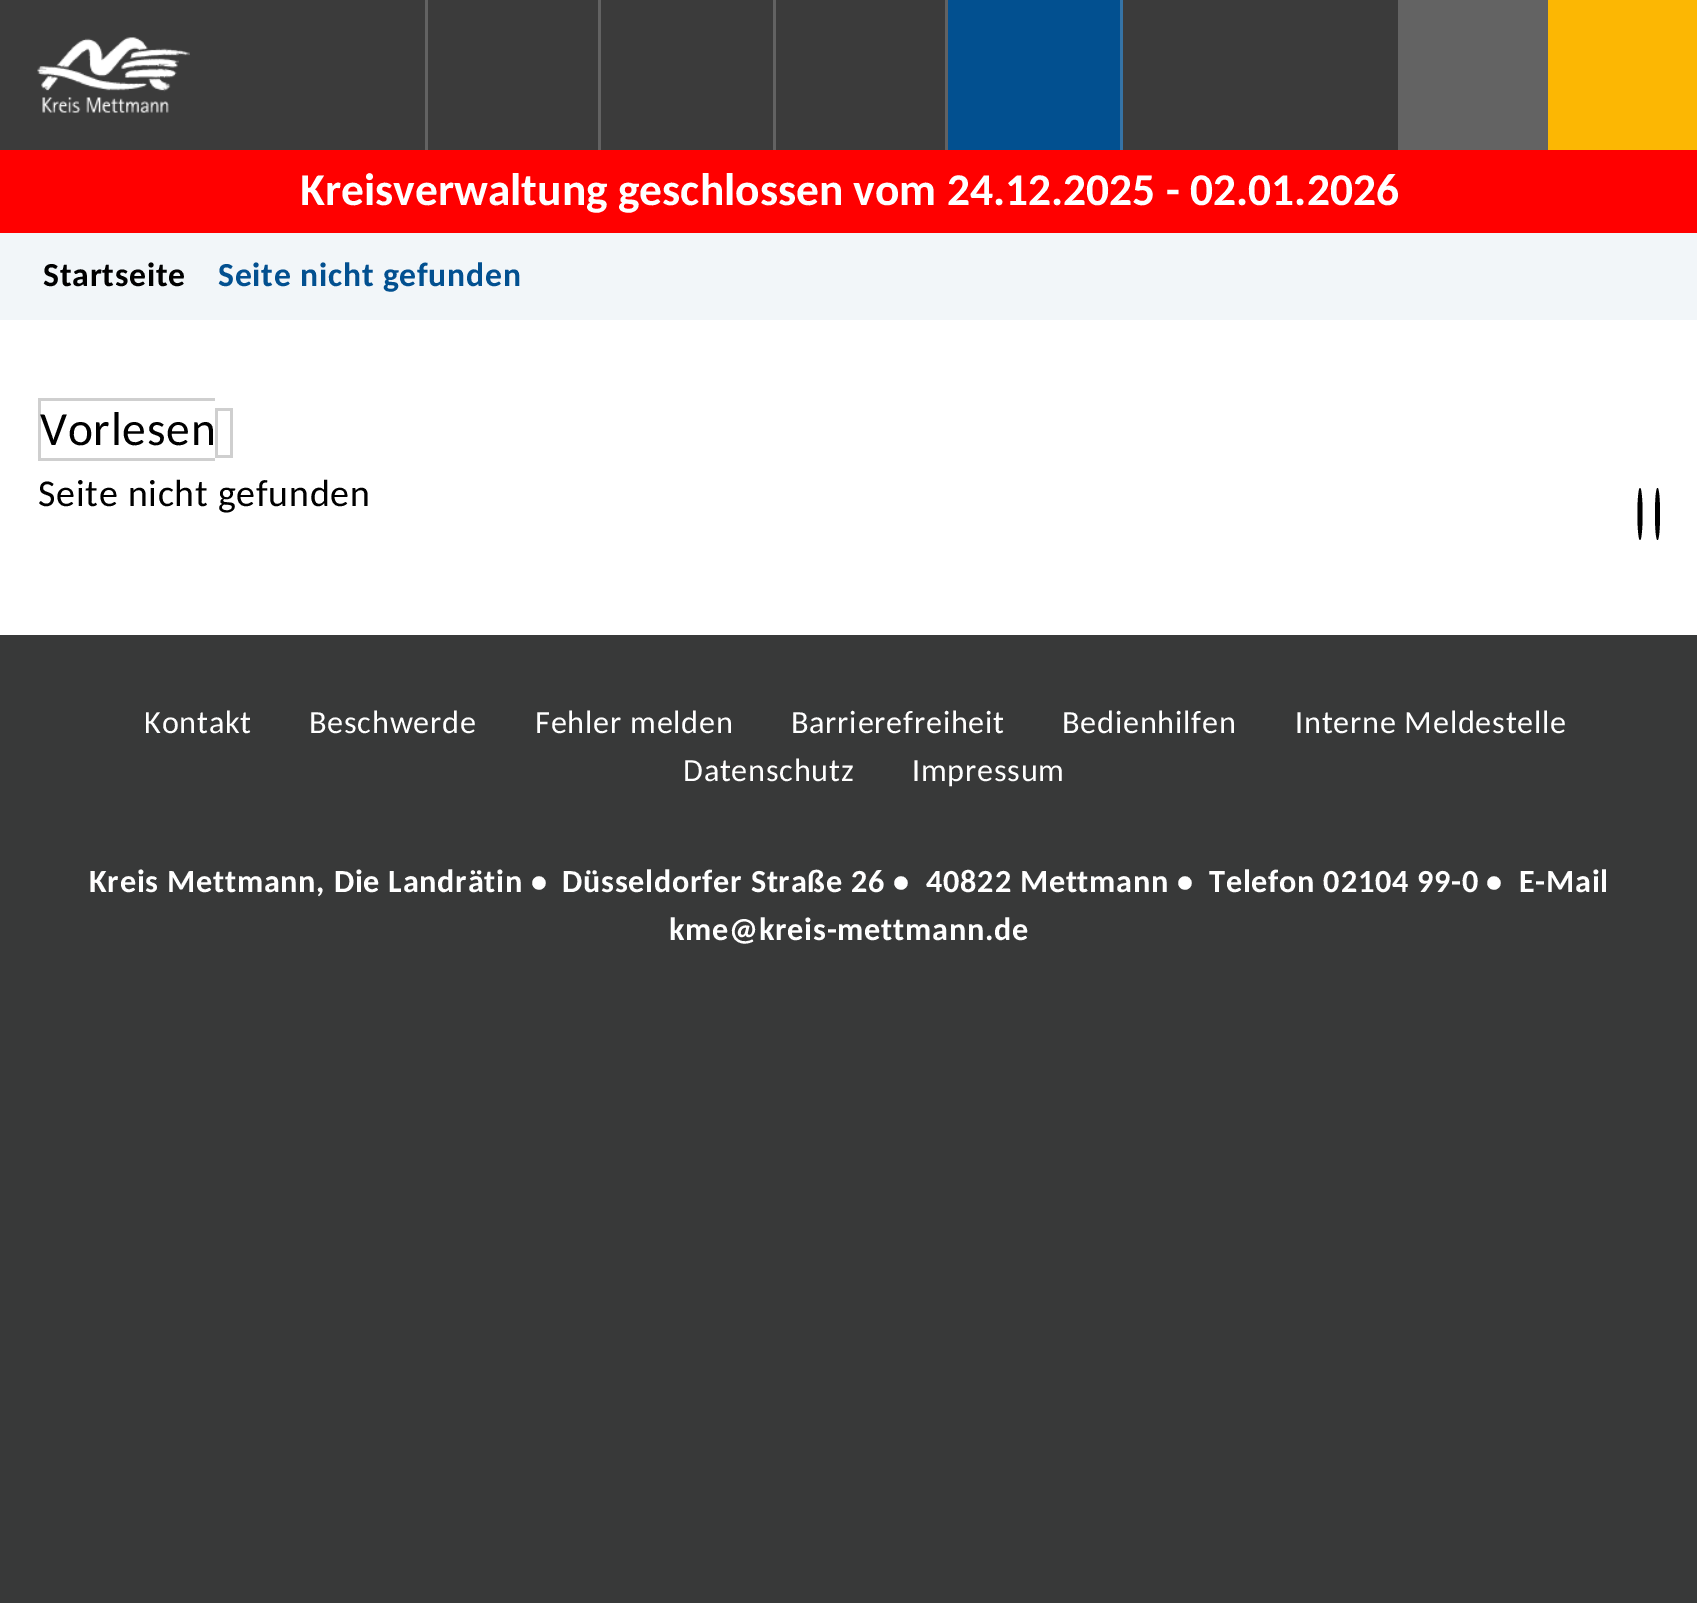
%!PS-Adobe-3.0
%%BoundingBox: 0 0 1697 1603
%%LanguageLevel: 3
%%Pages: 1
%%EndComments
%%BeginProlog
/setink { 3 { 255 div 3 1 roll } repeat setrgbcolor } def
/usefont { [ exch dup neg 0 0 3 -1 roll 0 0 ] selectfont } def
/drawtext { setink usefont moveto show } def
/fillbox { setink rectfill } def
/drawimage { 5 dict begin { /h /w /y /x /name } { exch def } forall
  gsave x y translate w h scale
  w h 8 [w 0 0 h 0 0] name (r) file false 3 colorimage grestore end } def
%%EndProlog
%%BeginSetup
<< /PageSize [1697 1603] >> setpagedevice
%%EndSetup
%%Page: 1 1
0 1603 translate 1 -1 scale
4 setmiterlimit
0 0 1697 1603 56 57 57 fillbox
0 0 1398 150 59 59 59 fillbox
(assets/img1.rgb) 37 37 153 76 drawimage
598 0 3 150 98 98 98 fillbox
425 0 3 150 98 98 98 fillbox
773 0 3 150 98 98 98 fillbox
945 0 3 150 98 98 98 fillbox
948 0 172 150 2 80 144 fillbox
1120 0 3 150 53 115 166 fillbox
1398 0 150 150 99 99 99 fillbox
1548 0 149 150 252 183 3 fillbox
0 150 1697 83 255 0 0 fillbox
(Kreisverwaltung geschlossen vom 24.12.2025 - 02.01.2026) 300 205 /Carlito-Bold 45.5 255 255 255 drawtext
0 233 1697 87 242 246 249 fillbox
/Carlito-Bold 33.75 usefont
0 0 0 setink
43 286 moveto 0.75 0 (Startseite) ashow
2 80 144 setink
218 286 moveto 0.75 0 (Seite nicht gefunden) ashow
0 320 1697 315 255 255 255 fillbox
38 398 177 3 207 207 207 fillbox
38 458 177 3 207 207 207 fillbox
38 398 3 62 207 207 207 fillbox
/Carlito-Regular 47.5 usefont
0 0 0 setink
40 445 moveto 0.75 0 (Vorlesen) ashow
215 408 18 3 207 207 207 fillbox
230 408 3 50 207 207 207 fillbox
215 455 18 3 207 207 207 fillbox
215 410 3 45 207 207 207 fillbox
/Carlito-Regular 37.9 usefont
0 0 0 setink
38 506 moveto 0.75 0 (Seite nicht gefunden) ashow
1640 488 moveto 1641.5 488 1642.5 499.5 1642.5 514 curveto 1642.5 528.5 1641.5 540 1640 540 curveto 1638.5 540 1637.5 528.5 1637.5 514 curveto 1637.5 499.5 1638.5 488 1640 488 curveto closepath fill
1657.5 488 moveto 1659 488 1660 499.5 1660 514 curveto 1660 528.5 1659 540 1657.5 540 curveto 1656 540 1655 528.5 1655 514 curveto 1655 499.5 1656 488 1657.5 488 curveto closepath fill
/Carlito-Regular 32.25 usefont
255 255 255 setink
144 733 moveto 0.75 0 (Kontakt) ashow
309 733 moveto 0.75 0 (Beschwerde) ashow
535 733 moveto 0.75 0 (Fehler melden) ashow
791 733 moveto 0.75 0 (Barrierefreiheit) ashow
1062 733 moveto 0.75 0 (Bedienhilfen) ashow
1295 733 moveto 0.75 0 (Interne Meldestelle) ashow
683 781 moveto 0.75 0 (Datenschutz) ashow
912 781 moveto 0.75 0 (Impressum) ashow
/Carlito-Bold 32.25 usefont
89 892 moveto 0.75 0 (Kreis Mettmann, Die Landrätin •) ashow
562 892 moveto 0.75 0 (Düsseldorfer Straße 26 •  40822 Mettmann •) ashow
1209 892 moveto 0.75 0 (Telefon 02104 99-0) ashow
1486 892 moveto 0.75 0 (•) ashow
1519 892 moveto 0.75 0 (E-Mail) ashow
669 940 moveto 0.75 0 (kme@kreis-mettmann.de) ashow
showpage
%%EOF
